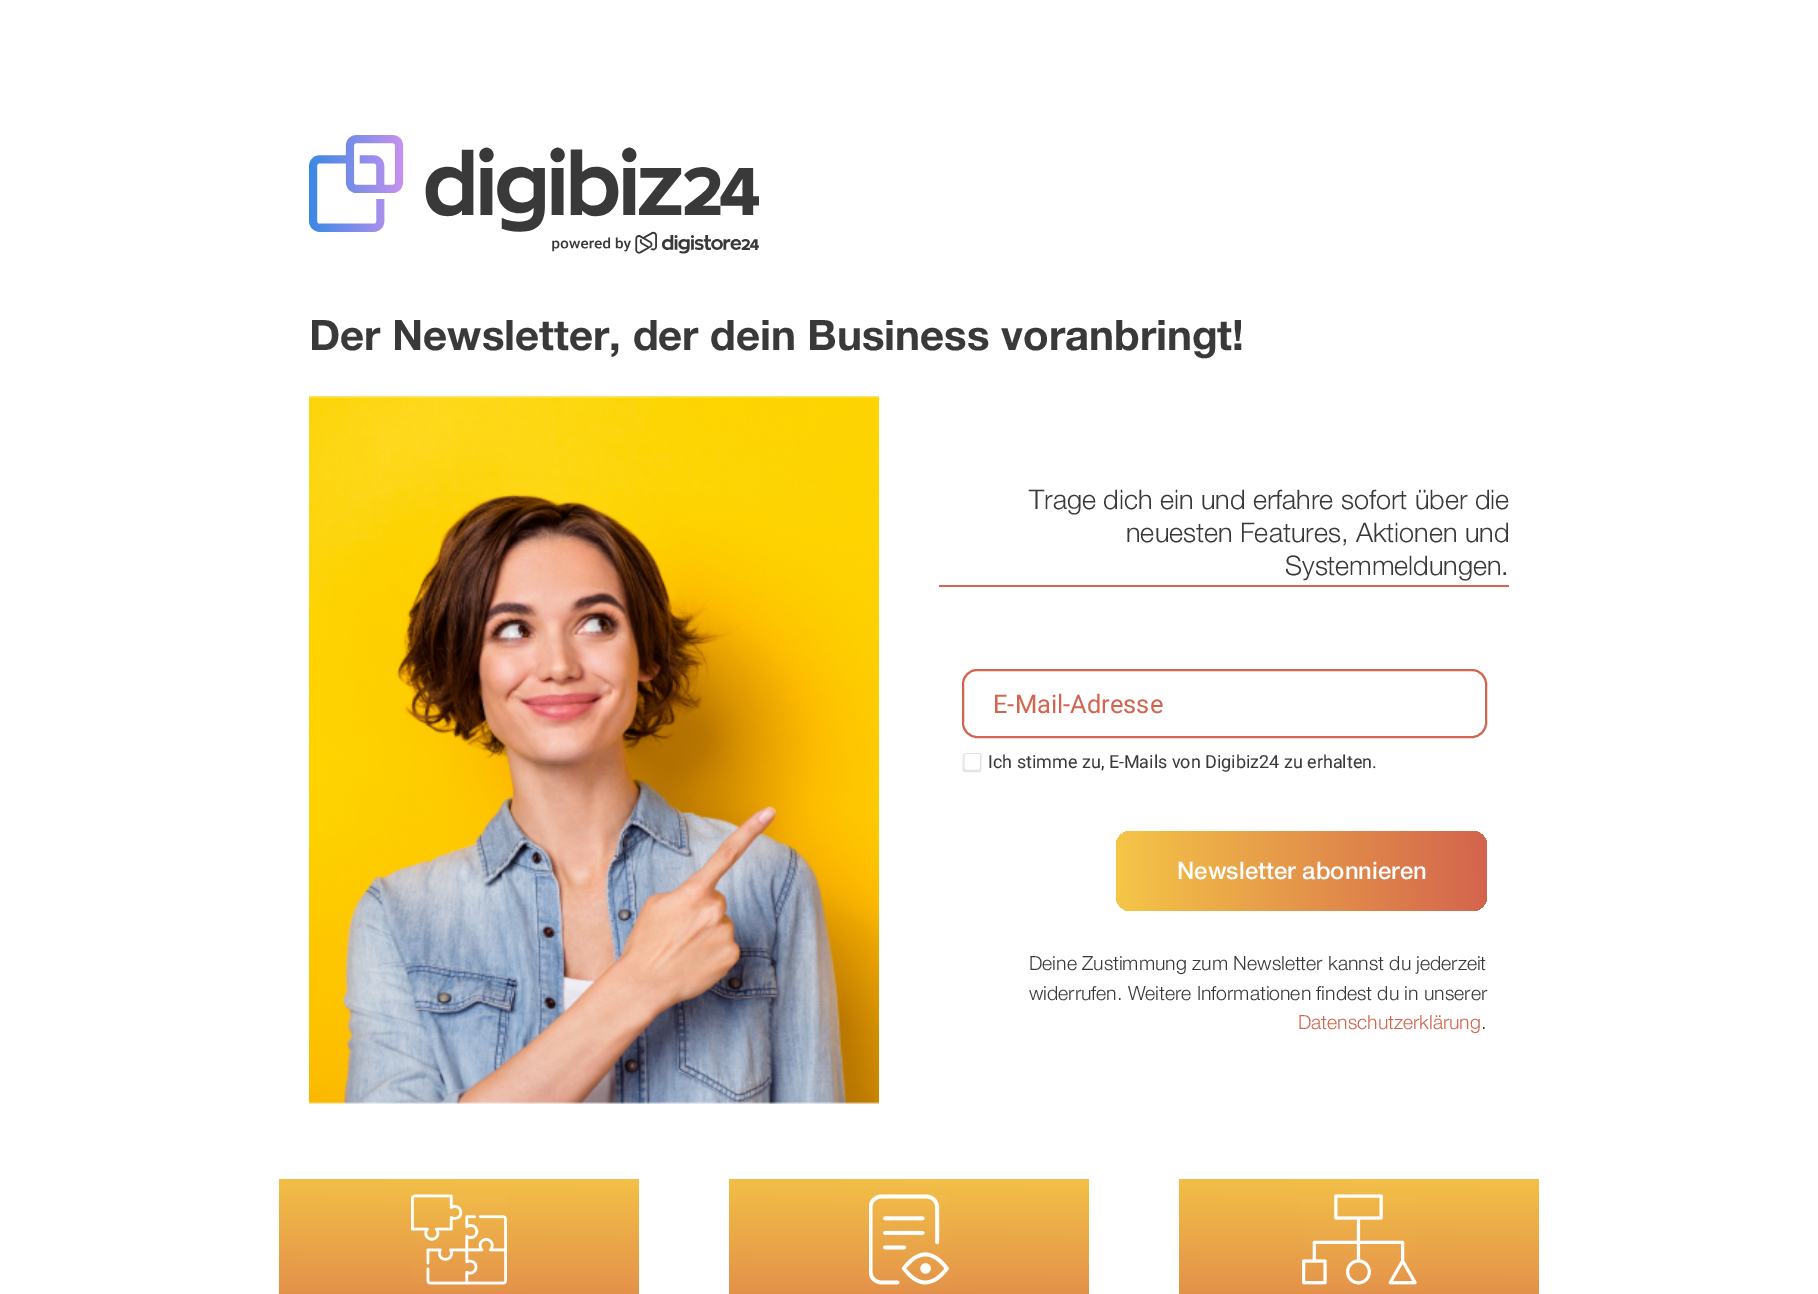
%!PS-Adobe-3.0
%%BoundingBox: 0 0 1818 1294
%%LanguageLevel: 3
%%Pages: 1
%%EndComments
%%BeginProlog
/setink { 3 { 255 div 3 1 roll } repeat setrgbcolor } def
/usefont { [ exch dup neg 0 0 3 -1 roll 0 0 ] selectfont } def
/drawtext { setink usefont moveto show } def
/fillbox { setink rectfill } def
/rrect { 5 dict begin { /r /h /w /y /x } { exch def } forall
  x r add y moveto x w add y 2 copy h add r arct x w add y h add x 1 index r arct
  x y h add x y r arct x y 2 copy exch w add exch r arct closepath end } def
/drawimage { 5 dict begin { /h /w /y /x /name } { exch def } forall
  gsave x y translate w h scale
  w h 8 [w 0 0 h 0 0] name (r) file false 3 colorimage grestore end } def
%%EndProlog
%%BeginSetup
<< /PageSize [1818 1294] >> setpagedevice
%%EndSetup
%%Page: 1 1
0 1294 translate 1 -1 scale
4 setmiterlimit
0 0 1818 1294 255 255 255 fillbox
(assets/img1.rgb) 309 135 450 119 drawimage
(Der Newsletter, der dein Business voranbringt!) 309 350 /HelveticaNeue-Bold 42 57 57 57 drawtext
(assets/img2.rgb) 309 396 570 708 drawimage
(Trage dich ein und erfahre sofort über die) 1029 509 /HelveticaNeue-Light 27 57 57 57 drawtext
(neuesten Features, Aktionen und) 1126 542 /HelveticaNeue-Light 27 57 57 57 drawtext
(Systemmeldungen.) 1285 575 /HelveticaNeue-Light 27 57 57 57 drawtext
939 585 570 2 211 100 77 fillbox
2 setlinewidth
963 670 523 67 14 rrect stroke
(E-Mail-Adresse) 993 713 /Roboto-Regular 25.5 211 100 77 drawtext
(assets/img3.rgb) 962 753 20 20 drawimage
(Ich stimme zu, E-Mails von Digibiz24 zu erhalten.) 988 768 /Roboto-Regular 18 57 57 57 drawtext
gsave 1116 831 371 80 15 rrect clip newpath
<< /ShadingType 2 /ColorSpace /DeviceRGB /Coords [1487 867 1115 875] /Extend [true true] /Function << /FunctionType 2 /Domain [0 1] /C0 [0.827 0.392 0.302] /C1 [0.961 0.776 0.278] /N 1 >> >> shfill grestore
(Newsletter abonnieren) 1177 879 /HelveticaNeue-Medium 24 255 255 255 drawtext
(Deine Zustimmung zum Newsletter kannst du jederzeit) 1029 970 /HelveticaNeue-Light 19.5 57 57 57 drawtext
(widerrufen. Weitere Informationen findest du in unserer) 1029 1000 /HelveticaNeue-Light 19.5 57 57 57 drawtext
(Datenschutzerklärung) 1298 1029 /HelveticaNeue-Light 19.5 211 100 77 drawtext
(.) 1481 1029 /HelveticaNeue-Light 19.5 57 57 57 drawtext
gsave 279 1179 moveto 639 1179 lineto 639 1294 lineto 279 1294 lineto closepath clip newpath
<< /ShadingType 2 /ColorSpace /DeviceRGB /Coords [460 1164 458 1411] /Extend [true true] /Function << /FunctionType 3 /Domain [0 1] /Functions [<< /FunctionType 2 /Domain [0 1] /C0 [0.961 0.776 0.278] /C1 [0.827 0.392 0.302] /N 1 >> << /FunctionType 2 /Domain [0 1] /C0 [0.827 0.392 0.302] /C1 [0.827 0.392 0.302] /N 1 >>] /Bounds [0.99] /Encode [0 1 0 1] >> >> shfill grestore
(assets/img4.rgb) 411 1194 96 91 drawimage
gsave 729 1179 moveto 1089 1179 lineto 1089 1294 lineto 729 1294 lineto closepath clip newpath
<< /ShadingType 2 /ColorSpace /DeviceRGB /Coords [910 1164 908 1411] /Extend [true true] /Function << /FunctionType 3 /Domain [0 1] /Functions [<< /FunctionType 2 /Domain [0 1] /C0 [0.961 0.776 0.278] /C1 [0.827 0.392 0.302] /N 1 >> << /FunctionType 2 /Domain [0 1] /C0 [0.827 0.392 0.302] /C1 [0.827 0.392 0.302] /N 1 >>] /Bounds [0.99] /Encode [0 1 0 1] >> >> shfill grestore
(assets/img5.rgb) 869 1194 80 91 drawimage
gsave 1179 1179 moveto 1539 1179 lineto 1539 1294 lineto 1179 1294 lineto closepath clip newpath
<< /ShadingType 2 /ColorSpace /DeviceRGB /Coords [1360 1164 1358 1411] /Extend [true true] /Function << /FunctionType 3 /Domain [0 1] /Functions [<< /FunctionType 2 /Domain [0 1] /C0 [0.961 0.776 0.278] /C1 [0.827 0.392 0.302] /N 1 >> << /FunctionType 2 /Domain [0 1] /C0 [0.827 0.392 0.302] /C1 [0.827 0.392 0.302] /N 1 >>] /Bounds [0.99] /Encode [0 1 0 1] >> >> shfill grestore
(assets/img6.rgb) 1302 1194 115 91 drawimage
showpage
%%EOF
